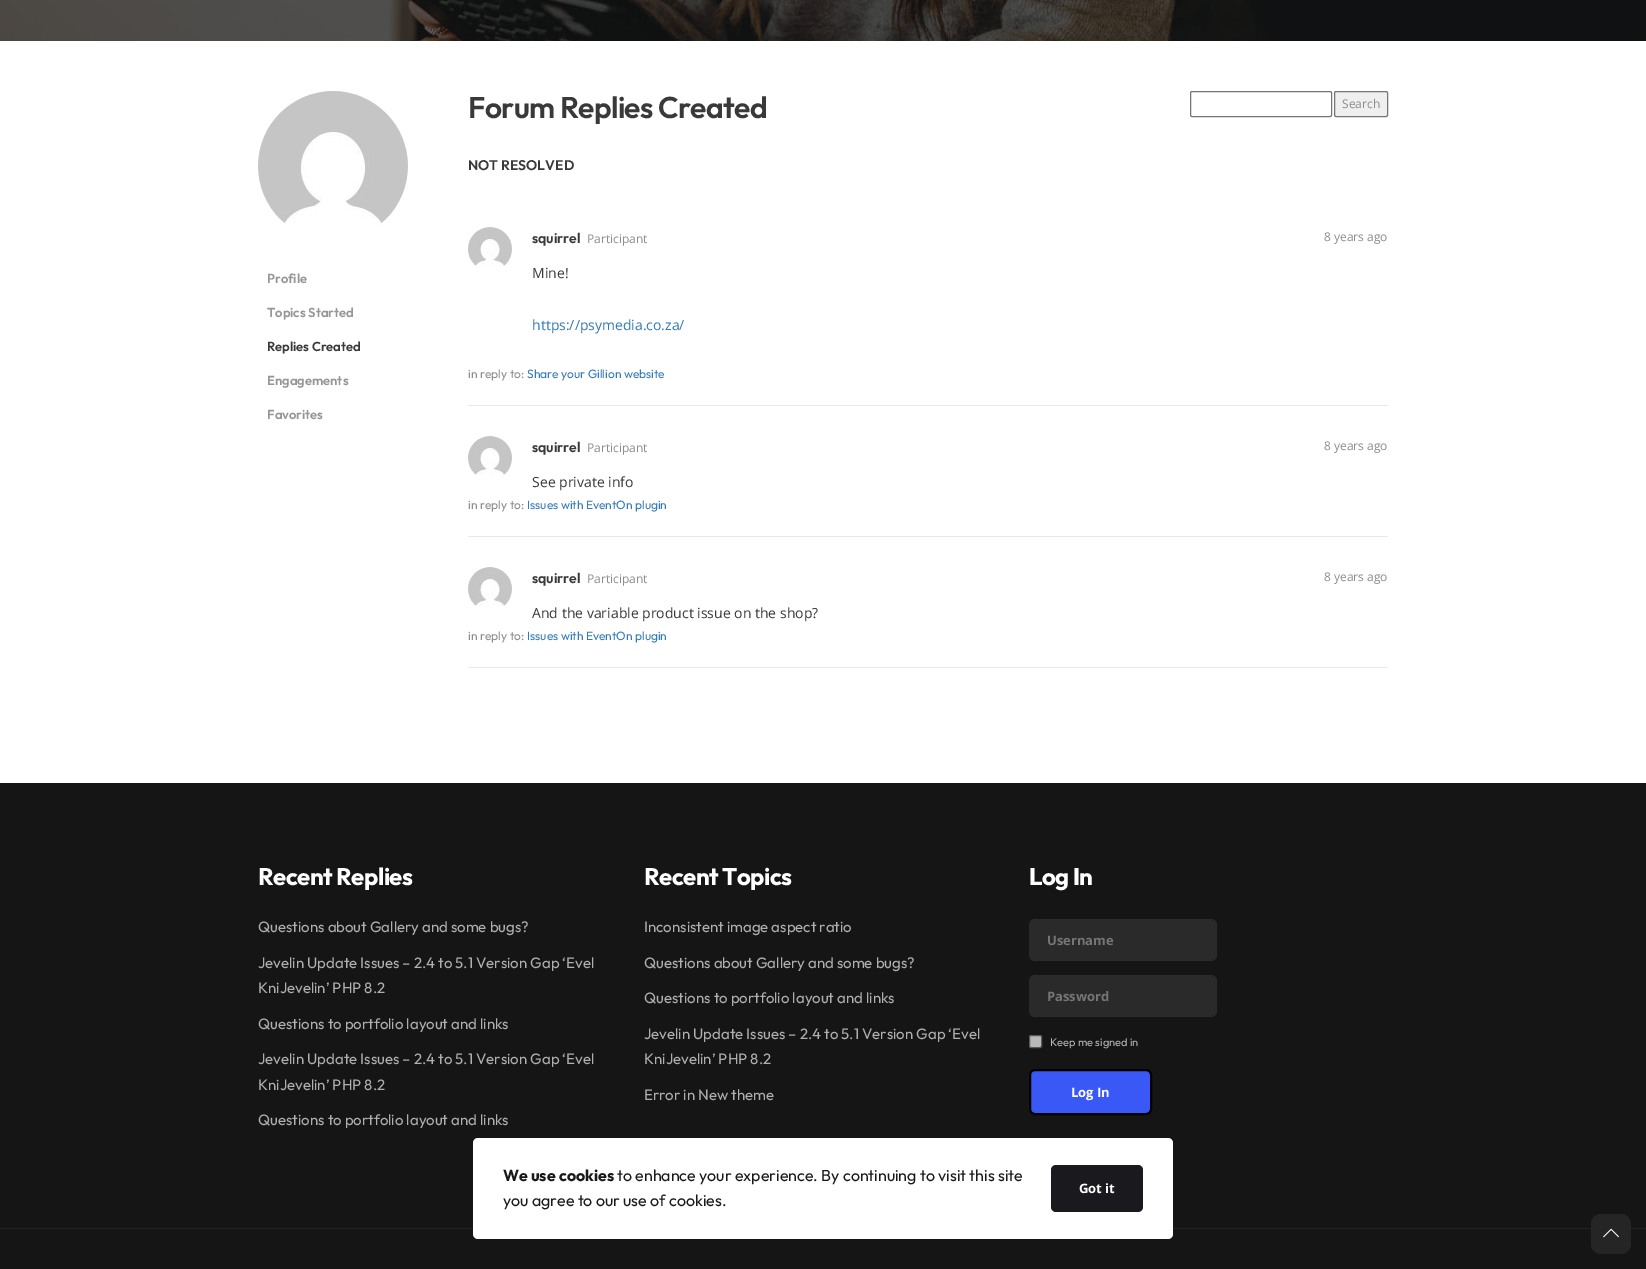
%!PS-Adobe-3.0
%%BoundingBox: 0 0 1646 1269
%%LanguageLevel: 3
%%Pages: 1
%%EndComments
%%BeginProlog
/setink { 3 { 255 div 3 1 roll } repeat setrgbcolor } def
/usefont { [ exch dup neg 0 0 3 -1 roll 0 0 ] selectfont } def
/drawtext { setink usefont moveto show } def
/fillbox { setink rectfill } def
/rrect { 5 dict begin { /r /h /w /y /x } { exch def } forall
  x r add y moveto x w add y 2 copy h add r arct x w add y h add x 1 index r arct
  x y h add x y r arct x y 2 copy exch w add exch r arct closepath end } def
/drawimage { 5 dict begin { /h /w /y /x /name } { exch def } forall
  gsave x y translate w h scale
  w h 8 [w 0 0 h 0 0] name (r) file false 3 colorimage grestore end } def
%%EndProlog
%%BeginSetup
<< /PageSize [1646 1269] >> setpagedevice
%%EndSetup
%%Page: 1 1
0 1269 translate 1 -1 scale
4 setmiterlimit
0 0 1646 1269 255 255 255 fillbox
1266 0 380 41 15 17 18 fillbox
(assets/img1.rgb) 0 0 1266 41 drawimage
(assets/img2.rgb) 258 91 150 134 drawimage
(Profile) 267 283 /Outfit-SemiBold 13 150 150 150 drawtext
(Topics Started) 267 317 /Outfit-SemiBold 13 150 150 150 drawtext
(Replies Created) 267 351 /Outfit-SemiBold 13 57 57 57 drawtext
(Engagements) 267 385 /Outfit-SemiBold 13 150 150 150 drawtext
(Favorites) 267 419 /Outfit-SemiBold 13 150 150 150 drawtext
/Outfit-SemiBold 30 usefont
57 57 57 setink
468 118 moveto -0.6 0 (Forum Replies Created) ashow
118 118 118 setink
1190.5 91.5 141 25 1.5 rrect stroke
239 239 239 setink
1334.5 91.5 53 25 1.5 rrect gsave fill grestore
118 118 118 setink
stroke
(Search) 1342 108 /OpenSans-Regular 12 140 140 140 drawtext
(NOT RESOLVED) 468 170 /Outfit-SemiBold 14 57 57 57 drawtext
468 405 920 1 232 232 232 fillbox
(assets/img3.rgb) 468 227 44 39 drawimage
(squirrel) 532 243 /Outfit-SemiBold 14 57 57 57 drawtext
(Participant) 587 243 /OpenSans-Regular 12 140 140 140 drawtext
(8 years ago) 1324 241 /OpenSans-Regular 12 140 140 140 drawtext
(Mine!) 532 278 /OpenSans-Regular 14 57 57 57 drawtext
(https://psymedia.co.za/) 532 330 /OpenSans-Regular 14 51 122 183 drawtext
(in reply to:) 468 378 /Outfit-Regular 12 140 140 140 drawtext
(Share your Gillion website) 527 378 /Outfit-Regular 12 51 122 183 drawtext
468 536 920 1 232 232 232 fillbox
(assets/img4.rgb) 468 436 44 39 drawimage
(squirrel) 532 452 /Outfit-SemiBold 14 57 57 57 drawtext
(Participant) 587 452 /OpenSans-Regular 12 140 140 140 drawtext
(8 years ago) 1324 450 /OpenSans-Regular 12 140 140 140 drawtext
(See private info) 532 487 /OpenSans-Regular 14 57 57 57 drawtext
(in reply to:) 468 509 /Outfit-Regular 12 140 140 140 drawtext
(Issues with EventOn plugin) 527 509 /Outfit-Regular 12 51 122 183 drawtext
468 667 920 1 232 232 232 fillbox
(assets/img4.rgb) 468 567 44 39 drawimage
(squirrel) 532 583 /Outfit-SemiBold 14 57 57 57 drawtext
(Participant) 587 583 /OpenSans-Regular 12 140 140 140 drawtext
(8 years ago) 1324 581 /OpenSans-Regular 12 140 140 140 drawtext
(And the variable product issue on the shop?) 532 618 /OpenSans-Regular 14 57 57 57 drawtext
(in reply to:) 468 640 /Outfit-Regular 12 140 140 140 drawtext
(Issues with EventOn plugin) 527 640 /Outfit-Regular 12 51 122 183 drawtext
0 783 1646 445 21 21 21 fillbox
/Outfit-Bold 24 usefont
255 255 255 setink
258 885 moveto -0.5 0 (Recent Replies) ashow
(Questions about Gallery and some bugs?) 258 932 /Outfit-Regular 15 175 175 175 drawtext
(Jevelin Update Issues – 2.4 to 5.1 Version Gap ‘Evel) 258 968 /Outfit-Regular 15 175 175 175 drawtext
(KniJevelin’ PHP 8.2) 258 993 /Outfit-Regular 15 175 175 175 drawtext
(Questions to portfolio layout and links) 258 1029 /Outfit-Regular 15 175 175 175 drawtext
(Jevelin Update Issues – 2.4 to 5.1 Version Gap ‘Evel) 258 1064 /Outfit-Regular 15 175 175 175 drawtext
(KniJevelin’ PHP 8.2) 258 1090 /Outfit-Regular 15 175 175 175 drawtext
(Questions to portfolio layout and links) 258 1125 /Outfit-Regular 15 175 175 175 drawtext
/Outfit-Bold 24 usefont
255 255 255 setink
644 885 moveto -0.5 0 (Recent Topics) ashow
(Inconsistent image aspect ratio) 644 932 /Outfit-Regular 15 175 175 175 drawtext
(Questions about Gallery and some bugs?) 644 968 /Outfit-Regular 15 175 175 175 drawtext
(Questions to portfolio layout and links) 644 1003 /Outfit-Regular 15 175 175 175 drawtext
(Jevelin Update Issues – 2.4 to 5.1 Version Gap ‘Evel) 644 1039 /Outfit-Regular 15 175 175 175 drawtext
(KniJevelin’ PHP 8.2) 644 1064 /Outfit-Regular 15 175 175 175 drawtext
(Error in New theme) 644 1100 /Outfit-Regular 15 175 175 175 drawtext
/Outfit-Bold 24 usefont
255 255 255 setink
1029 885 moveto -0.5 0 (Log In) ashow
42 42 42 setink
1029 919 188 42 6 rrect fill
(Username) 1047 945 /OpenSans-Bold 13 117 117 117 drawtext
42 42 42 setink
1029 975 188 42 6 rrect fill
(Password) 1047 1001 /OpenSans-Bold 13 117 117 117 drawtext
185 185 185 setink
1029.5 1035.5 12 12 1.5 rrect gsave fill grestore
89 89 89 setink
stroke
(Keep me signed in) 1050 1046 /Outfit-Regular 11 185 185 185 drawtext
58 88 245 setink
1030 1070 121 44 5 rrect gsave fill grestore
0 0 0 setink
2 setlinewidth
stroke
(Log In) 1071 1097 /OpenSans-Bold 13 255 255 255 drawtext
0 1229 1646 40 21 21 21 fillbox
0 1228 1646 1 35 35 35 fillbox
255 255 255 setink
473 1138 700 101 5 rrect fill
(We use cookies) 503 1181 /Outfit-Bold 16 25 25 25 drawtext
(to enhance your experience. By continuing to visit this site) 617 1181 /Outfit-Regular 16 25 25 25 drawtext
(you agree to our use of cookies.) 503 1206 /Outfit-Regular 16 25 25 25 drawtext
26 25 29 setink
1051 1165 92 47 5 rrect fill
(Got it) 1079 1193 /OpenSans-Bold 13 255 255 255 drawtext
37 37 37 setink
1591 1214 40 40 10 rrect fill
(assets/img5.rgb) 1603 1228 16 10 drawimage
showpage
%%EOF
